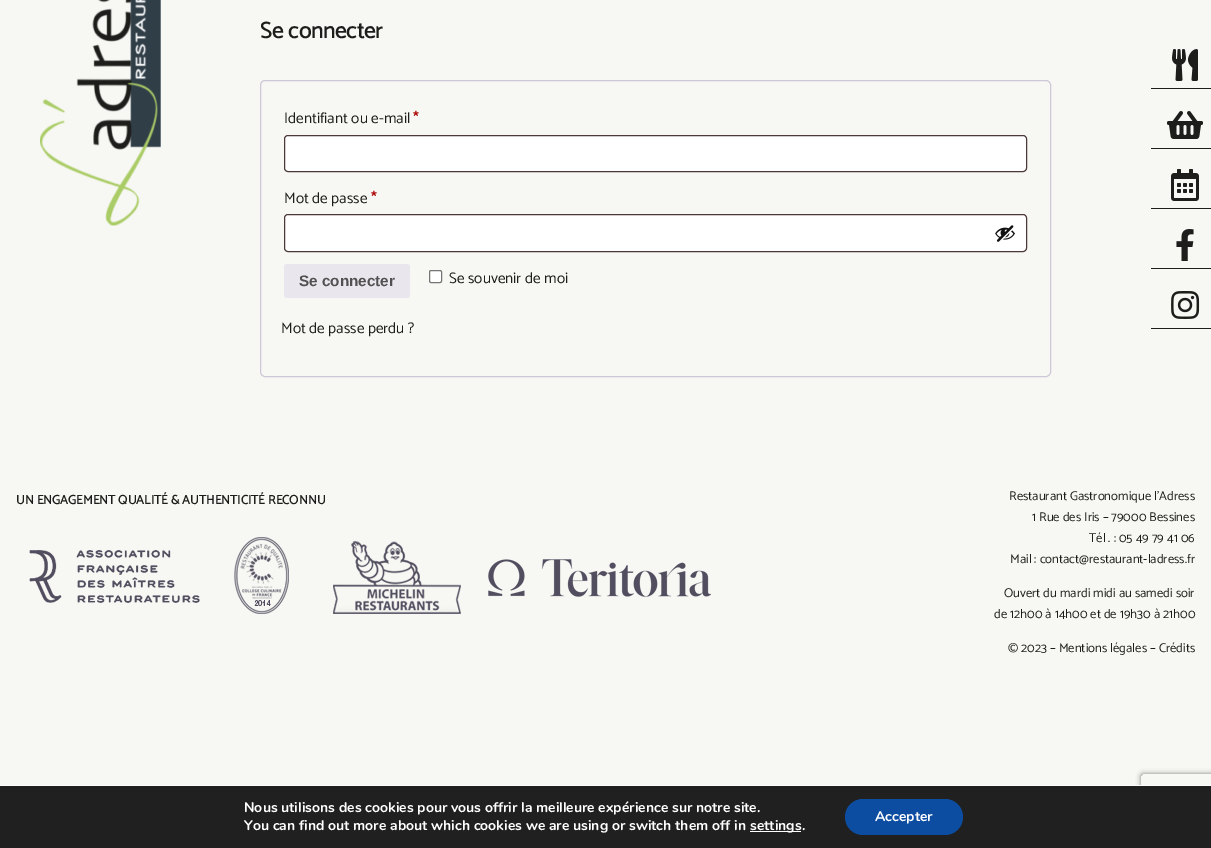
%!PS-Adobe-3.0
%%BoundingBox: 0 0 1211 848
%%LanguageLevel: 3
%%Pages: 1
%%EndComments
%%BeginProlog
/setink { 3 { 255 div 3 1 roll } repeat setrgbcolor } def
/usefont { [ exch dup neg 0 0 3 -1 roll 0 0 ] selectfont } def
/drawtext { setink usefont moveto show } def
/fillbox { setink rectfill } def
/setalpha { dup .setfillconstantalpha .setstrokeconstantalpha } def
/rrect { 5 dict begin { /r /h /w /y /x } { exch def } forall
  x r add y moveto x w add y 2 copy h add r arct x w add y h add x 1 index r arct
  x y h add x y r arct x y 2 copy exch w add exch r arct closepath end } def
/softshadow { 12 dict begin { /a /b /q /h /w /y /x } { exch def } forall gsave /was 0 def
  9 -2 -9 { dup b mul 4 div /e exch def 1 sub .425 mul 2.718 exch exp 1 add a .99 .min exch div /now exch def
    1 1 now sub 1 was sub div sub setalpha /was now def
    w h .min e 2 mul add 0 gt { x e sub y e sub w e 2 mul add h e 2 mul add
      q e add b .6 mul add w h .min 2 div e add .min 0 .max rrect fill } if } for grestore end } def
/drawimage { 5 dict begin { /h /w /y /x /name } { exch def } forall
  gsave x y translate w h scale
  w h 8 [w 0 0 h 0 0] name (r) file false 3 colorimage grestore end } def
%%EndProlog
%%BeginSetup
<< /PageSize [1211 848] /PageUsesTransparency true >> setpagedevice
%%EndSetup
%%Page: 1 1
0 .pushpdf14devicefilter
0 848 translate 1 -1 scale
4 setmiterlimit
0 0 1211 848 247 248 243 fillbox
(assets/img1.rgb) 40 0 121 226 drawimage
1151 88 60 1 29 29 27 fillbox
(assets/img2.rgb) 1172 49 26 32 drawimage
1151 148 60 1 29 29 27 fillbox
(assets/img3.rgb) 1167 111 36 28 drawimage
1151 208 60 1 29 29 27 fillbox
(assets/img4.rgb) 1171 169 28 32 drawimage
1151 268 60 1 29 29 27 fillbox
(assets/img5.rgb) 1176 229 18 32 drawimage
1151 328 60 1 29 29 27 fillbox
(assets/img6.rgb) 1171 291 29 28 drawimage
(Se connecter) 260 38 /Catamaran-Bold 22.75 29 29 27 drawtext
207 200 216 setink
260.5 80.5 790 296 4.5 rrect stroke
(Identifiant ou e-mail) 284 123 /Catamaran-Regular 15.25 29 29 27 drawtext
(*) 413 123 /Catamaran-Bold 15.25 170 0 0 drawtext
255 255 255 setink
284 135 743 37 4 rrect fill
0.8 setalpha
32 7 7 setink
284.5 135.5 742 36 3.5 rrect stroke
1 setalpha
(Mot de passe) 284 203 /Catamaran-Regular 15.25 29 29 27 drawtext
(*) 371 203 /Catamaran-Bold 15.25 170 0 0 drawtext
255 255 255 setink
284 214 743 38 4 rrect fill
0.8 setalpha
32 7 7 setink
284.5 214.5 742 37 3.5 rrect stroke
1 setalpha
(assets/img7.rgb) 995 225 20 17 drawimage
233 230 237 setink
284 264 126 34 3 rrect fill
(Se connecter) 299 286 /LiberationSans-Bold 15.25 81 81 81 drawtext
255 255 255 setink
429.5 270.5 12 12 1.5 rrect gsave fill grestore
118 118 118 setink
stroke
(Se souvenir de moi) 449 283 /Catamaran-Regular 15.25 29 29 27 drawtext
(Mot de passe perdu ?) 281 333 /Catamaran-Regular 15.25 29 29 27 drawtext
(UN ENGAGEMENT QUALITÉ & AUTHENTICITÉ RECONNU) 16 504 /Catamaran-Bold 12.8 29 29 27 drawtext
(assets/img8.rgb) 29 550 171 53 drawimage
(assets/img9.rgb) 234 537 55 77 drawimage
(assets/img10.rgb) 333 541 128 73 drawimage
(assets/img11.rgb) 488 559 223 38 drawimage
(Restaurant Gastronomique l’Adress) 1009 500 /Catamaran-Regular 12.8 29 29 27 drawtext
(1 Rue des Iris – 79000 Bessines) 1032 521 /Catamaran-Regular 12.8 29 29 27 drawtext
(Tél . : 05 49 79 41 06) 1089 542 /Catamaran-Regular 12.8 29 29 27 drawtext
(Mail : contact@restaurant-ladress.fr) 1010 563 /Catamaran-Regular 12.8 29 29 27 drawtext
(Ouvert du mardi midi au samedi soir) 1004 597 /Catamaran-Regular 12.8 29 29 27 drawtext
(de 12h00 à 14h00 et de 19h30 à 21h00) 994 618 /Catamaran-Regular 12.8 29 29 27 drawtext
(© 2023 – Mentions légales – Crédits) 1008 652 /Catamaran-Regular 12.8 29 29 27 drawtext
gsave
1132 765 moveto 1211 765 lineto 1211 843 lineto 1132 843 lineto closepath 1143 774 moveto 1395 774 lineto 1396 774 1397 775 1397 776 curveto 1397 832 lineto 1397 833 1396 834 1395 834 curveto 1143 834 lineto 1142 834 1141 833 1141 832 curveto 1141 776 lineto 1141 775 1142 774 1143 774 curveto closepath eoclip newpath
128 128 128 setink
1141 774 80 60 2 2.5 1 softshadow
grestore
0 786 1211 62 32 32 32 fillbox
0 785 1211 1 255 255 255 fillbox
(Nous utilisons des cookies pour vous offrir la meilleure expérience sur notre site.) 244 812 /Nunito-Bold 14 255 255 255 drawtext
(You can find out more about which cookies we are using or switch them off in) 244 830 /Nunito-Bold 14 255 255 255 drawtext
750 831 51 1 255 255 255 fillbox
(settings.) 750 830 /Nunito-Bold 14 255 255 255 drawtext
12 77 162 setink
845 799 118 36 18 rrect fill
(Accepter) 875 821 /Nunito-Bold 14 255 255 255 drawtext
.poppdf14devicefilter showpage
%%EOF
